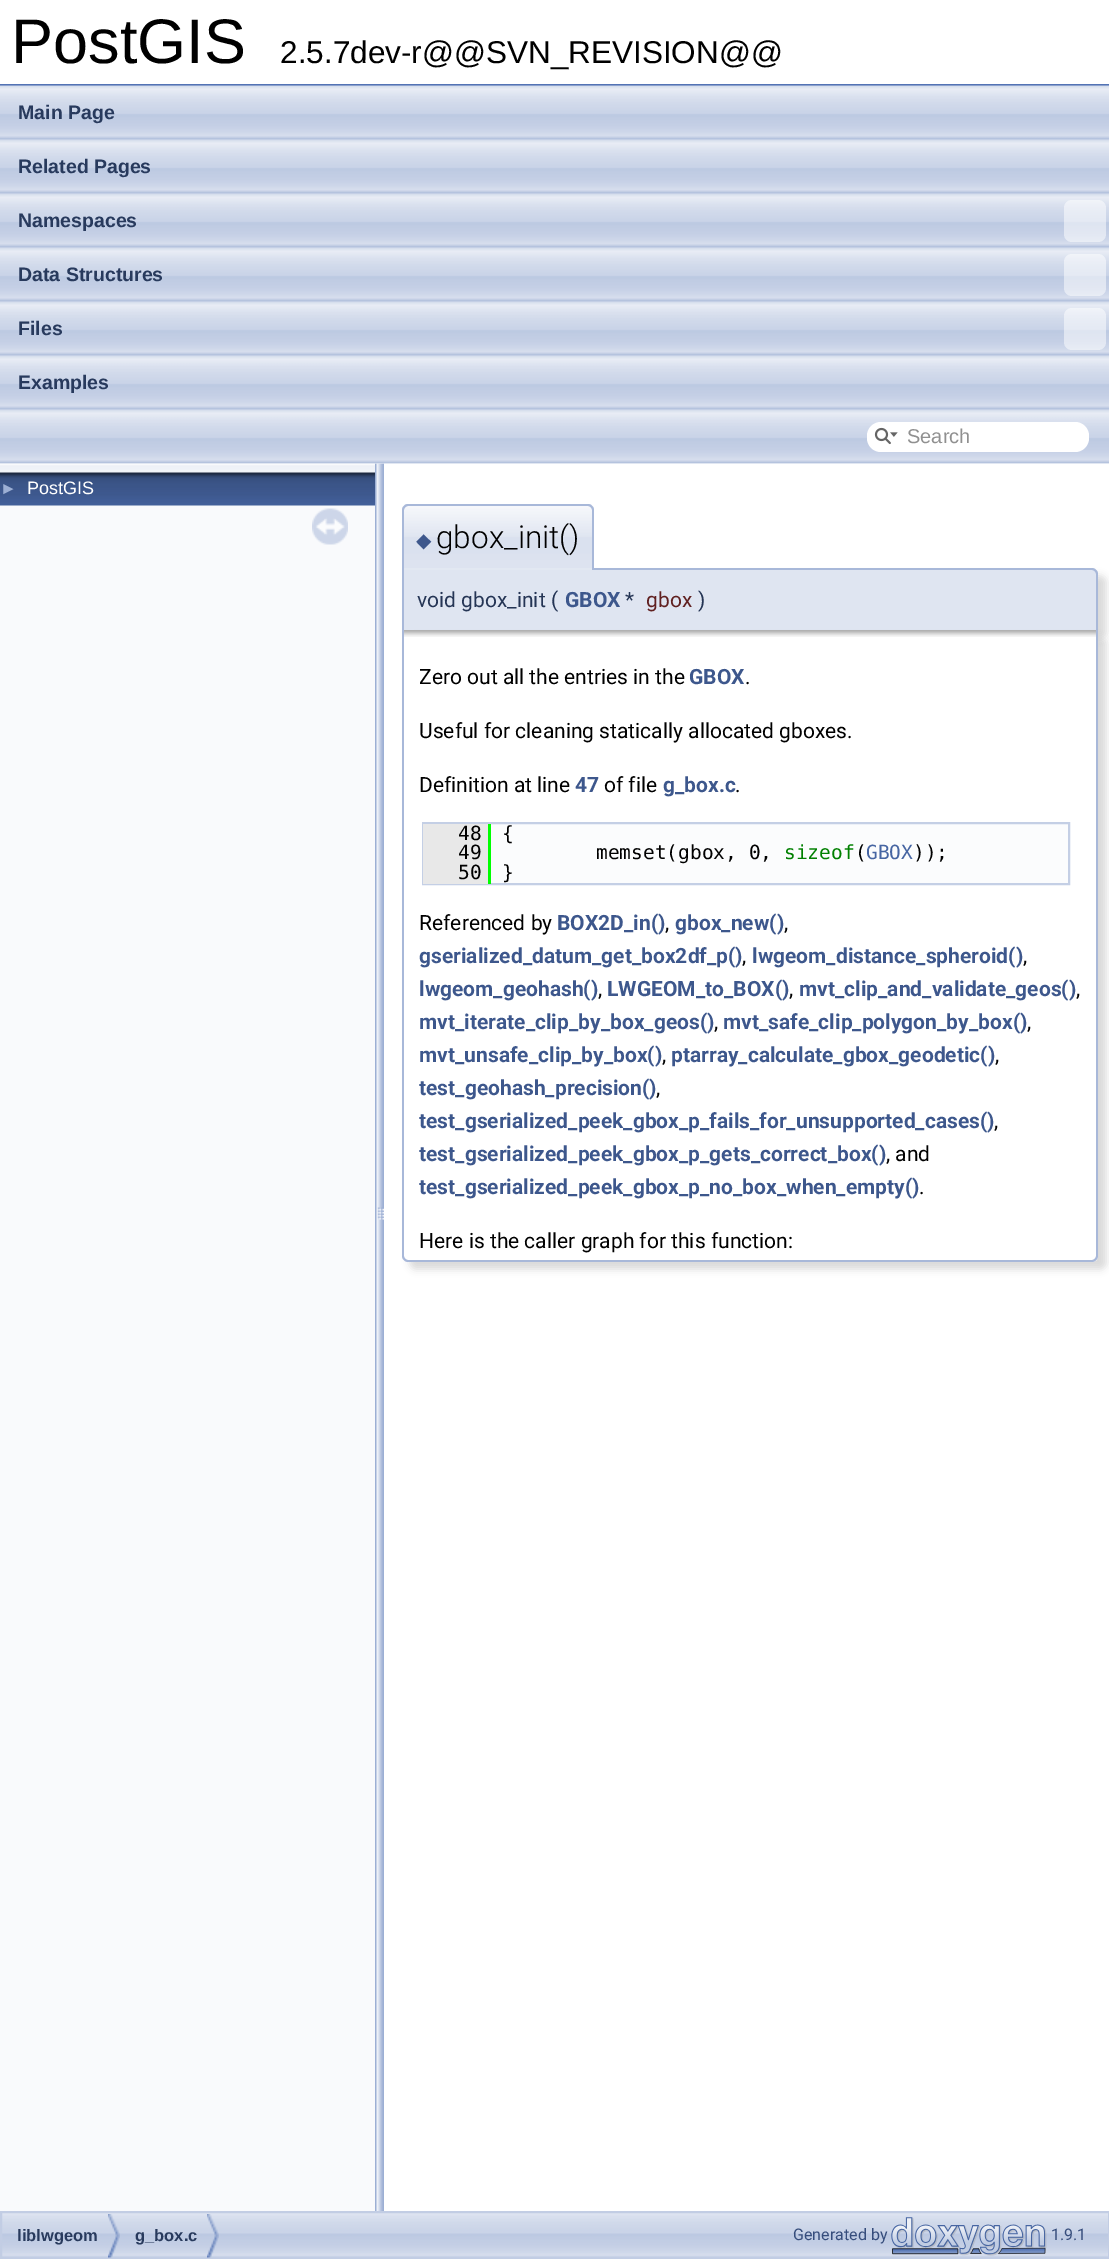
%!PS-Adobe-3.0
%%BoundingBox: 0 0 1109 2259
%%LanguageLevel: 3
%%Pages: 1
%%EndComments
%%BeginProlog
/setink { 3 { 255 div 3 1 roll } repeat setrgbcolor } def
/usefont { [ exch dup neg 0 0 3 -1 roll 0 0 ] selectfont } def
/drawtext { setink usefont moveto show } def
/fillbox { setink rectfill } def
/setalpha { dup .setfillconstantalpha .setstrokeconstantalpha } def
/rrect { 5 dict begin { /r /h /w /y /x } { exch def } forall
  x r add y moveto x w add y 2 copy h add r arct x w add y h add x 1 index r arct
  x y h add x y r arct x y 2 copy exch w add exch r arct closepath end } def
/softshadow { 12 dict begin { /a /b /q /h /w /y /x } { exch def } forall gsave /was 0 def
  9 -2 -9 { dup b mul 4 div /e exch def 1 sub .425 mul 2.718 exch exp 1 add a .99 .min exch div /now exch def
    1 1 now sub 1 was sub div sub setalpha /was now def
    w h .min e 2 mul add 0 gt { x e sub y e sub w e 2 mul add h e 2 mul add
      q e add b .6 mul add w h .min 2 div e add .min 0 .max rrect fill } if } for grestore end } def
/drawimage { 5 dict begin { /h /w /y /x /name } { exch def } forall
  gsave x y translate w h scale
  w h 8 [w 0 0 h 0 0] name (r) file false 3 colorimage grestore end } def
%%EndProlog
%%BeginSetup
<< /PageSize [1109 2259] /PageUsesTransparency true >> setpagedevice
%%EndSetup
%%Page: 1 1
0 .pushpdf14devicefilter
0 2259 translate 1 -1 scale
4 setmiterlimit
0 0 1109 2259 255 255 255 fillbox
0 84 1109 2 83 115 180 fillbox
(PostGIS) 11 63 /LiberationSans-Regular 63 0 0 0 drawtext
(2.5.7dev-r@@SVN_REVISION@@) 280 63 /LiberationSans-Regular 31.5 0 0 0 drawtext
(assets/img6.rgb) 375 463 9 1748 drawimage
(assets/img1.rgb) 0 85 1109 379 drawimage
(Main Page) 18 119 /LiberationSans-Bold 19.5 40 58 93 drawtext
(Related Pages) 18 173 /LiberationSans-Bold 19.5 40 58 93 drawtext
(Namespaces) 18 227 /LiberationSans-Bold 19.5 40 58 93 drawtext
0.5 setalpha
255 255 255 setink
1064 200 42 42 8 rrect fill
1 setalpha
(Data Structures) 18 281 /LiberationSans-Bold 19.5 40 58 93 drawtext
0.5 setalpha
255 255 255 setink
1064 254 42 42 8 rrect fill
1 setalpha
(Files) 18 335 /LiberationSans-Bold 19.5 40 58 93 drawtext
0.5 setalpha
255 255 255 setink
1064 308 42 42 8 rrect fill
1 setalpha
(Examples) 18 389 /LiberationSans-Bold 19.5 40 58 93 drawtext
255 255 255 setink
867 422 222 30 14 rrect fill
(assets/img2.rgb) 874 427 24 18 drawimage
(Search) 907 443 /LiberationSans-Regular 20 144 144 144 drawtext
0 464 375 1747 249 250 252 fillbox
(assets/img3.rgb) 0 465 375 8 drawimage
(assets/img4.rgb) 0 472 375 34 drawimage
(►) 0 494 /LiberationSans-Regular 17 156 175 212 drawtext
(PostGIS) 27 494 /LiberationSans-Regular 18 255 255 255 drawtext
(assets/img5.rgb) 312 508 36 37 drawimage
0 0 0 setink
410 576 696 62 6 4 0.15 softshadow
223 229 241 setink
402 569 moveto 1092 569 lineto 1095.5 569 1098 571.5 1098 575 curveto 1098 630 lineto 402 630 lineto closepath fill
168 184 217 setink
402 568 moveto 1092 568 lineto 1095 568 1098 571 1098 574 curveto 1098 630 lineto 402 630 lineto closepath 404 570 moveto 1092 570 lineto 1094 570 1096 572 1096 574 curveto 1096 630 lineto 404 630 lineto closepath eofill
226 232 242 setink
408 504 moveto 588 504 lineto 591.5 504 594 506.5 594 510 curveto 594 570 lineto 402 570 lineto 402 510 lineto 402 506.5 404.5 504 408 504 curveto closepath fill
(assets/img7.rgb) 402 505 192 63 drawimage
168 184 217 setink
408 504 moveto 588 504 lineto 591 504 594 507 594 510 curveto 594 570 lineto 402 570 lineto 402 510 lineto 402 507 405 504 408 504 curveto closepath 408 506 moveto 588 506 lineto 590 506 592 508 592 510 curveto 592 570 lineto 404 570 lineto 404 510 lineto 404 508 406 506 408 506 curveto closepath eofill
(◆) 416 547 /DejaVuSans-Regular 20 61 87 140 drawtext
(gbox_init\(\)) 436 548 /Roboto-Light 31.5 0 0 0 drawtext
(void gbox_init) 417 607 /Roboto-Regular 21 37 53 85 drawtext
(\() 551 607 /Roboto-Regular 21 37 53 85 drawtext
(GBOX) 565 607 /Roboto-Bold 21 61 87 140 drawtext
(*) 625 607 /Roboto-Regular 21 37 53 85 drawtext
(gbox) 646 607 /Roboto-Regular 21 96 32 32 drawtext
(\)) 698 607 /Roboto-Regular 21 37 53 85 drawtext
0 0 0 setink
410 638 696 631 6 4 0.15 softshadow
255 255 255 setink
402 630 moveto 1098 630 lineto 1098 1256 lineto 1098 1259.5 1095.5 1262 1092 1262 curveto 408 1262 lineto 404.5 1262 402 1259.5 402 1256 curveto closepath fill
(assets/img8.rgb) 404 630 692 7 drawimage
168 184 217 setink
402 630 moveto 1098 630 lineto 1098 1256 lineto 1098 1259 1095 1262 1092 1262 curveto 408 1262 lineto 405 1262 402 1259 402 1256 curveto closepath 404 630 moveto 1096 630 lineto 1096 1256 lineto 1096 1258 1094 1260 1092 1260 curveto 408 1260 lineto 406 1260 404 1258 404 1256 curveto closepath eofill
(Zero out all the entries in the) 419 684 /Roboto-Regular 21 0 0 0 drawtext
(GBOX) 689 684 /Roboto-Bold 21 61 87 140 drawtext
(.) 745 684 /Roboto-Regular 21 0 0 0 drawtext
(Useful for cleaning statically allocated gboxes.) 419 738 /Roboto-Regular 21 0 0 0 drawtext
(Definition at line) 419 792 /Roboto-Regular 21 0 0 0 drawtext
(47) 575 792 /Roboto-Bold 21 61 87 140 drawtext
(of file) 604 792 /Roboto-Regular 21 0 0 0 drawtext
(g_box.c) 663 792 /Roboto-Bold 21 61 87 140 drawtext
(.) 735 792 /Roboto-Regular 21 0 0 0 drawtext
491 824 577 59 251 252 253 fillbox
196 207 229 setink
2 setlinewidth
423 823 646 61 rectstroke
423 824 65 60 232 232 232 fillbox
(48) 458 840 /DejaVuSansMono-Regular 19.5 0 0 0 drawtext
488 824 3 60 0 255 0 fillbox
({) 502 840 /DejaVuSansMono-Regular 19.5 0 0 0 drawtext
(49) 458 859 /DejaVuSansMono-Regular 19.5 0 0 0 drawtext
(memset\(gbox, 0,) 596 859 /DejaVuSansMono-Regular 19.5 0 0 0 drawtext
(sizeof) 784 859 /DejaVuSansMono-Regular 19.5 0 128 0 drawtext
(\() 855 859 /DejaVuSansMono-Regular 19.5 0 0 0 drawtext
(GBOX) 866 859 /DejaVuSansMono-Regular 19.5 70 101 162 drawtext
(\)\);) 913 859 /DejaVuSansMono-Regular 19.5 0 0 0 drawtext
(50) 458 879 /DejaVuSansMono-Regular 19.5 0 0 0 drawtext
(}) 502 879 /DejaVuSansMono-Regular 19.5 0 0 0 drawtext
(Referenced by) 419 930 /Roboto-Regular 21 0 0 0 drawtext
(BOX2D_in\(\)) 557 930 /Roboto-Bold 21 61 87 140 drawtext
(,) 665 930 /Roboto-Regular 21 0 0 0 drawtext
(gbox_new\(\)) 675 930 /Roboto-Bold 21 61 87 140 drawtext
(,) 784 930 /Roboto-Regular 21 0 0 0 drawtext
(gserialized_datum_get_box2df_p\(\)) 419 963 /Roboto-Bold 21 61 87 140 drawtext
(,) 742 963 /Roboto-Regular 21 0 0 0 drawtext
(lwgeom_distance_spheroid\(\)) 752 963 /Roboto-Bold 21 61 87 140 drawtext
(,) 1023 963 /Roboto-Regular 21 0 0 0 drawtext
(lwgeom_geohash\(\)) 419 996 /Roboto-Bold 21 61 87 140 drawtext
(,) 598 996 /Roboto-Regular 21 0 0 0 drawtext
(LWGEOM_to_BOX\(\)) 607 996 /Roboto-Bold 21 61 87 140 drawtext
(,) 789 996 /Roboto-Regular 21 0 0 0 drawtext
(mvt_clip_and_validate_geos\(\)) 799 996 /Roboto-Bold 21 61 87 140 drawtext
(,) 1076 996 /Roboto-Regular 21 0 0 0 drawtext
(mvt_iterate_clip_by_box_geos\(\)) 419 1029 /Roboto-Bold 21 61 87 140 drawtext
(,) 714 1029 /Roboto-Regular 21 0 0 0 drawtext
(mvt_safe_clip_polygon_by_box\(\)) 723 1029 /Roboto-Bold 21 61 87 140 drawtext
(,) 1027 1029 /Roboto-Regular 21 0 0 0 drawtext
(mvt_unsafe_clip_by_box\(\)) 419 1062 /Roboto-Bold 21 61 87 140 drawtext
(,) 662 1062 /Roboto-Regular 21 0 0 0 drawtext
(ptarray_calculate_gbox_geodetic\(\)) 671 1062 /Roboto-Bold 21 61 87 140 drawtext
(,) 995 1062 /Roboto-Regular 21 0 0 0 drawtext
(test_geohash_precision\(\)) 419 1095 /Roboto-Bold 21 61 87 140 drawtext
(,) 656 1095 /Roboto-Regular 21 0 0 0 drawtext
(test_gserialized_peek_gbox_p_fails_for_unsupported_cases\(\)) 419 1128 /Roboto-Bold 21 61 87 140 drawtext
(,) 994 1128 /Roboto-Regular 21 0 0 0 drawtext
(test_gserialized_peek_gbox_p_gets_correct_box\(\)) 419 1161 /Roboto-Bold 21 61 87 140 drawtext
(, and) 886 1161 /Roboto-Regular 21 0 0 0 drawtext
(test_gserialized_peek_gbox_p_no_box_when_empty\(\)) 419 1194 /Roboto-Bold 21 61 87 140 drawtext
(.) 919 1194 /Roboto-Regular 21 0 0 0 drawtext
(Here is the caller graph for this function:) 419 1248 /Roboto-Regular 21 0 0 0 drawtext
(assets/img9.rgb) 2 2213 1106 44 drawimage
194 205 228 setink
1 2212 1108 46 rectstroke
(assets/img10.rgb) 108 2214 12 44 drawimage
(liblwgeom) 17 2241 /LiberationSans-Bold 16.5 40 58 93 drawtext
(assets/img10.rgb) 207 2214 12 44 drawimage
(g_box.c) 135 2241 /LiberationSans-Bold 16.5 40 58 93 drawtext
(Generated by) 793 2240 /Roboto-Regular 16 54 77 124 drawtext
(assets/img11.rgb) 891 2217 156 39 drawimage
(1.9.1) 1051 2240 /Roboto-Regular 16 54 77 124 drawtext
.poppdf14devicefilter showpage
%%EOF
